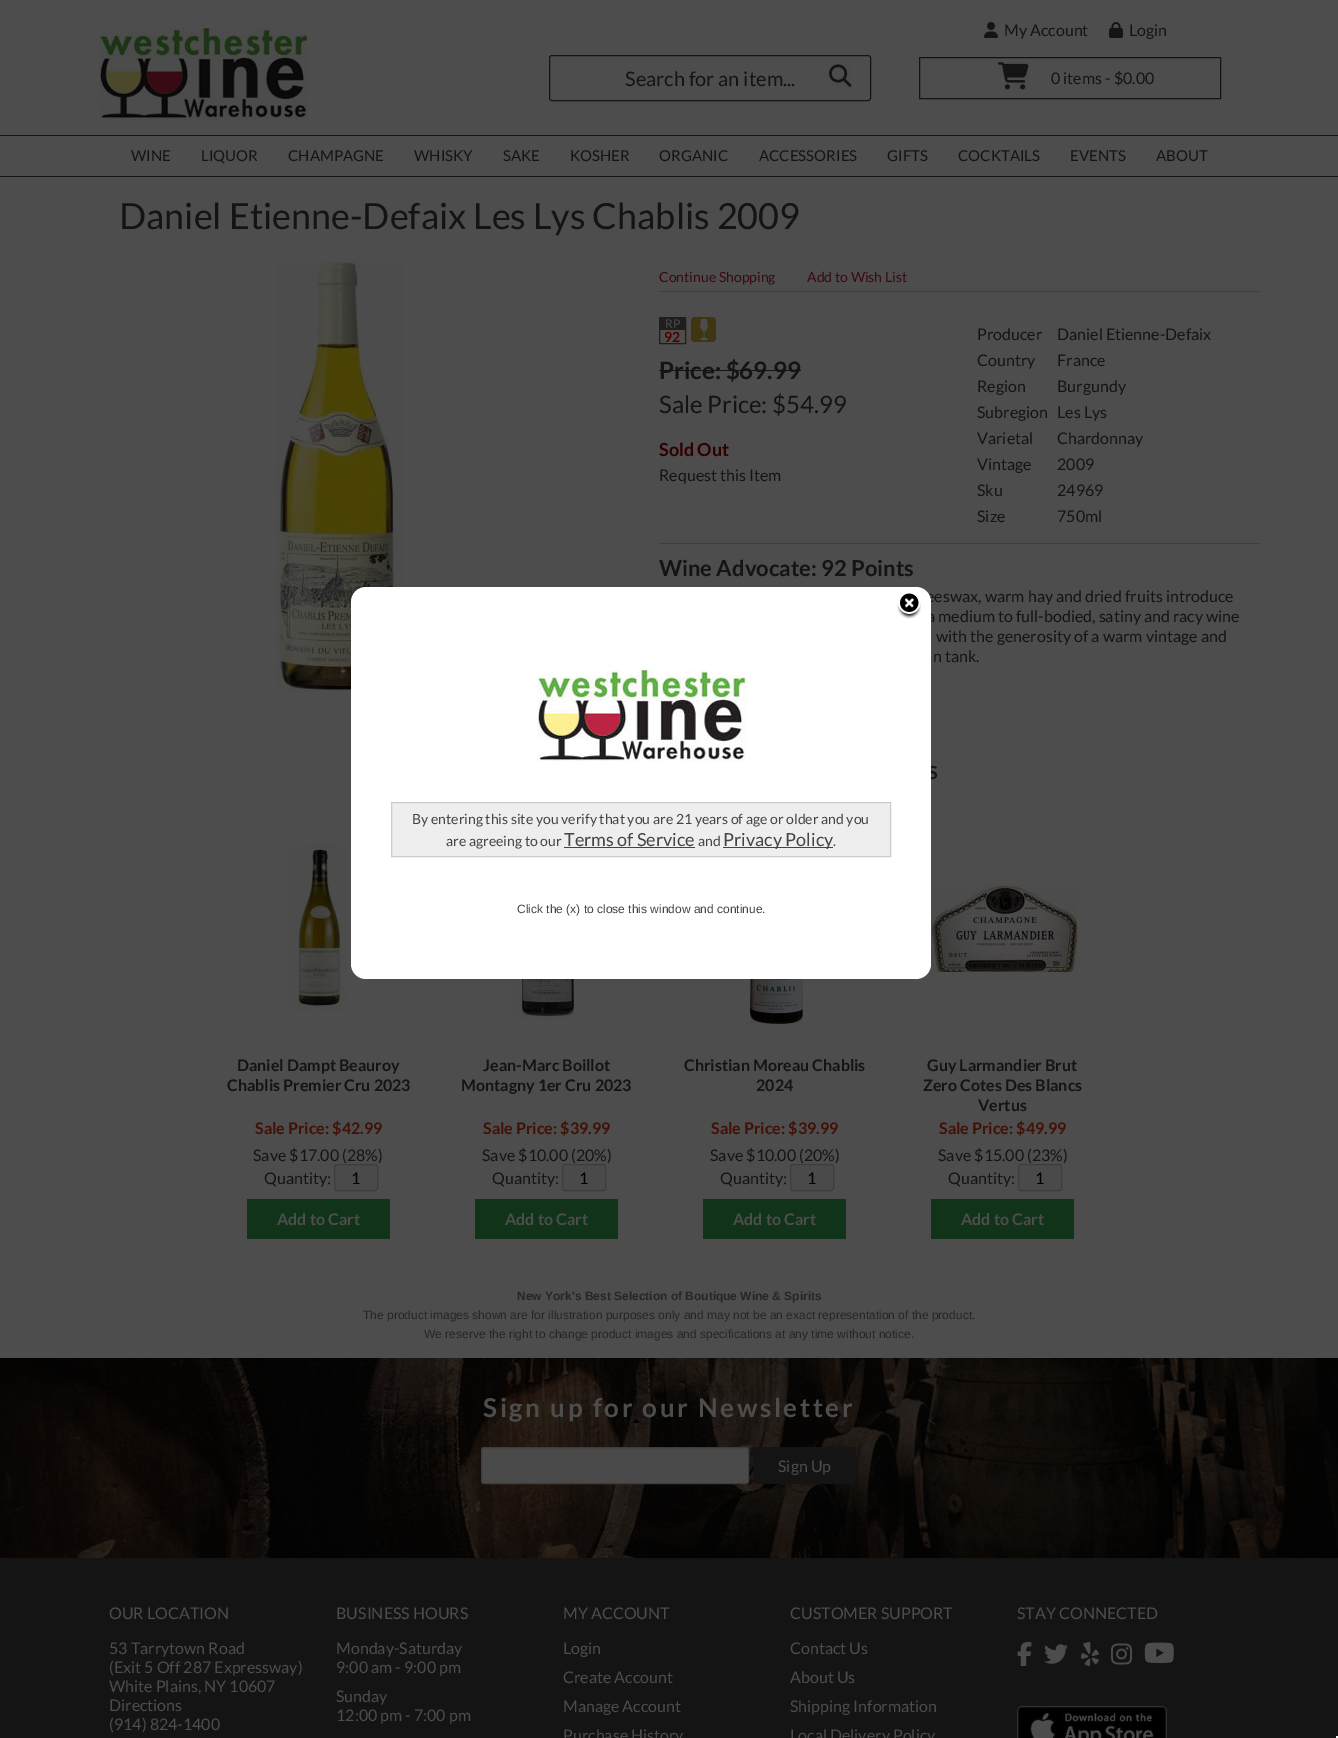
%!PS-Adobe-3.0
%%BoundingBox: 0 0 1338 1738
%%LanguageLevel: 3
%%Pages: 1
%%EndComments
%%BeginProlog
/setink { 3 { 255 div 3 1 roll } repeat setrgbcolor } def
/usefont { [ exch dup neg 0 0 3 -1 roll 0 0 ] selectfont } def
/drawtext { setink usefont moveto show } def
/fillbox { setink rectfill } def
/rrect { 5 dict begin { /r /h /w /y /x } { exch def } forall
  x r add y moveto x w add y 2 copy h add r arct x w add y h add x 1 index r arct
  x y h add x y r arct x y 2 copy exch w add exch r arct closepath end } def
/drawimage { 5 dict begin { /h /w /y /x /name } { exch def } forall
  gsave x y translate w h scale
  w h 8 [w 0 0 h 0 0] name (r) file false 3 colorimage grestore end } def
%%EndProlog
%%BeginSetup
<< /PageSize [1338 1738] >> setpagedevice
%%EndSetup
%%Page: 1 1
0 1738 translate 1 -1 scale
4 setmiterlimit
0 0 1338 1738 77 77 77 fillbox
(assets/img1.rgb) 99 28 209 92 drawimage
(assets/img2.rgb) 984 22 14 16 drawimage
(My Account) 1004 36 /Lato-Regular 16 20 20 20 drawtext
(assets/img3.rgb) 1109 22 14 16 drawimage
(Login) 1129 36 /Lato-Regular 16 20 20 20 drawtext
549.5 55.5 321 45 2.5 rrect stroke
(Search for an item...) 625 86 /Lato-Regular 20 20 20 20 drawtext
(assets/img4.rgb) 829 64 23 23 drawimage
919.5 57.5 301 41 rectstroke
(assets/img5.rgb) 998 62 31 28 drawimage
(0 items - $0.00) 1051 84 /Lato-Regular 16 20 20 20 drawtext
0 135 1338 1 20 20 20 fillbox
0 176 1338 1 20 20 20 fillbox
(WINE) 131 161 /Lato-Regular 15 20 20 20 drawtext
(LIQUOR) 201 161 /Lato-Regular 15 20 20 20 drawtext
(CHAMPAGNE) 288 161 /Lato-Regular 15 20 20 20 drawtext
(WHISKY) 414 161 /Lato-Regular 15 20 20 20 drawtext
(SAKE) 503 161 /Lato-Regular 15 20 20 20 drawtext
(KOSHER) 570 161 /Lato-Regular 15 20 20 20 drawtext
(ORGANIC) 659 161 /Lato-Regular 15 20 20 20 drawtext
(ACCESSORIES) 759 161 /Lato-Regular 15 20 20 20 drawtext
(GIFTS) 887 161 /Lato-Regular 15 20 20 20 drawtext
(COCKTAILS) 958 161 /Lato-Regular 15 20 20 20 drawtext
(EVENTS) 1070 161 /Lato-Regular 15 20 20 20 drawtext
(ABOUT) 1156 161 /Lato-Regular 15 20 20 20 drawtext
(Daniel Etienne-Defaix Les Lys Chablis 2009) 119 229 /Lato-Regular 36 20 20 20 drawtext
(assets/img6.rgb) 276 261 128 430 drawimage
659 291 600 1 61 61 61 fillbox
(Continue Shopping) 659 282 /Lato-Regular 14 57 10 15 drawtext
(Add to Wish List) 807 282 /Lato-Regular 14 57 10 15 drawtext
659 543 600 1 61 61 61 fillbox
30 30 31 setink
659.5 317.5 26 26 rectstroke
660 318 25 12 30 30 31 fillbox
(RP) 665 328 /Lato-Regular 12 77 77 77 drawtext
(92) 664 342 /Lato-Bold 14 77 0 0 drawtext
(assets/img7.rgb) 691 317 25 25 drawimage
(Price: $69.99) 659 379 /Lato-Bold 24 20 20 20 drawtext
659 370 142 1 20 20 20 fillbox
(Sale Price: $54.99) 659 413 /Lato-Regular 24 20 20 20 drawtext
(Sold Out) 659 456 /Lato-Bold 18 48 0 0 drawtext
(Request this Item) 659 481 /Lato-Regular 16 20 20 20 drawtext
(Producer) 977 340 /Lato-Regular 16 20 20 20 drawtext
(Daniel Etienne-Defaix) 1057 340 /Lato-Regular 16 20 20 20 drawtext
(Country) 977 366 /Lato-Regular 16 20 20 20 drawtext
(France) 1057 366 /Lato-Regular 16 20 20 20 drawtext
(Region) 977 392 /Lato-Regular 16 20 20 20 drawtext
(Burgundy) 1057 392 /Lato-Regular 16 20 20 20 drawtext
(Subregion) 977 418 /Lato-Regular 16 20 20 20 drawtext
(Les Lys) 1057 418 /Lato-Regular 16 20 20 20 drawtext
(Varietal) 977 444 /Lato-Regular 16 20 20 20 drawtext
(Chardonnay) 1057 444 /Lato-Regular 16 20 20 20 drawtext
(Vintage) 977 470 /Lato-Regular 16 20 20 20 drawtext
(2009) 1057 470 /Lato-Regular 16 20 20 20 drawtext
(Sku) 977 496 /Lato-Regular 16 20 20 20 drawtext
(24969) 1057 496 /Lato-Regular 16 20 20 20 drawtext
(Size) 977 522 /Lato-Regular 16 20 20 20 drawtext
(750ml) 1057 522 /Lato-Regular 16 20 20 20 drawtext
(Wine Advocate: 92 Points) 659 576 /Lato-Bold 22 20 20 20 drawtext
(eeswax, warm hay and dried fruits introduce) 926 602 /Lato-Regular 16 20 20 20 drawtext
(a medium to full-bodied, satiny and racy wine) 927 622 /Lato-Regular 16 20 20 20 drawtext
(with the generosity of a warm vintage and) 936 642 /Lato-Regular 16 20 20 20 drawtext
(n tank.) 933 662 /Lato-Regular 16 20 20 20 drawtext
(S) 928 779 /Lato-Bold 18 20 20 20 drawtext
(assets/img8.rgb) 289 844 57 168 drawimage
(Daniel Dampt Beauroy) 237 1071 /Lato-Bold 16 20 20 20 drawtext
(Chablis Premier Cru 2023) 227 1091 /Lato-Bold 16 20 20 20 drawtext
(Sale Price: $42.99) 255 1134 /Lato-Bold 16 67 16 5 drawtext
(Save $17.00 \(28%\)) 253 1161 /Lato-Regular 16 20 20 20 drawtext
(Quantity:) 264 1184 /Lato-Regular 16 20 20 20 drawtext
74 74 74 setink
334.5 1164.5 43 26 2.5 rrect gsave fill grestore
61 61 61 setink
stroke
(1) 351 1184 /Lato-Regular 16 0 0 0 drawtext
247 1199 143 40 17 51 25 fillbox
(Add to Cart) 277 1225 /Lato-Bold 16 77 77 77 drawtext
(assets/img9.rgb) 510 979 65 40 drawimage
(Jean-Marc Boillot) 483 1071 /Lato-Bold 16 20 20 20 drawtext
(Montagny 1er Cru 2023) 461 1091 /Lato-Bold 16 20 20 20 drawtext
(Sale Price: $39.99) 483 1134 /Lato-Bold 16 67 16 5 drawtext
(Save $10.00 \(20%\)) 482 1161 /Lato-Regular 16 20 20 20 drawtext
(Quantity:) 492 1184 /Lato-Regular 16 20 20 20 drawtext
74 74 74 setink
562.5 1164.5 43 26 2.5 rrect gsave fill grestore
61 61 61 setink
stroke
(1) 579 1184 /Lato-Regular 16 0 0 0 drawtext
475 1199 143 40 17 51 25 fillbox
(Add to Cart) 505 1225 /Lato-Bold 16 77 77 77 drawtext
(assets/img10.rgb) 750 979 53 45 drawimage
(Christian Moreau Chablis) 684 1071 /Lato-Bold 16 20 20 20 drawtext
(2024) 756 1091 /Lato-Bold 16 20 20 20 drawtext
(Sale Price: $39.99) 711 1134 /Lato-Bold 16 67 16 5 drawtext
(Save $10.00 \(20%\)) 710 1161 /Lato-Regular 16 20 20 20 drawtext
(Quantity:) 720 1184 /Lato-Regular 16 20 20 20 drawtext
74 74 74 setink
790.5 1164.5 43 26 2.5 rrect gsave fill grestore
61 61 61 setink
stroke
(1) 807 1184 /Lato-Regular 16 0 0 0 drawtext
703 1199 143 40 17 51 25 fillbox
(Add to Cart) 733 1225 /Lato-Bold 16 77 77 77 drawtext
(assets/img11.rgb) 932 884 145 88 drawimage
(Guy Larmandier Brut) 927 1071 /Lato-Bold 16 20 20 20 drawtext
(Zero Cotes Des Blancs) 923 1091 /Lato-Bold 16 20 20 20 drawtext
(Vertus) 978 1111 /Lato-Bold 16 20 20 20 drawtext
(Sale Price: $49.99) 939 1134 /Lato-Bold 16 67 16 5 drawtext
(Save $15.00 \(23%\)) 938 1161 /Lato-Regular 16 20 20 20 drawtext
(Quantity:) 948 1184 /Lato-Regular 16 20 20 20 drawtext
74 74 74 setink
1018.5 1164.5 43 26 2.5 rrect gsave fill grestore
61 61 61 setink
stroke
(1) 1035 1184 /Lato-Regular 16 0 0 0 drawtext
931 1199 143 40 17 51 25 fillbox
(Add to Cart) 961 1225 /Lato-Bold 16 77 77 77 drawtext
255 255 255 setink
351 587 580 392 15 rrect fill
(assets/img12.rgb) 897 593 24 26 drawimage
(assets/img13.rgb) 537 670 209 92 drawimage
238 238 238 setink
391.5 802.5 moveto 890.5 802.5 lineto 890.5 856.5 lineto 391.5 856.5 lineto closepath gsave fill grestore
204 204 204 setink
stroke
(By entering this site you verify that you are 21 years of age or older and you) 412 824 /Lato-Regular 14 68 68 68 drawtext
(are agreeing to our) 446 846 /Lato-Regular 14 68 68 68 drawtext
564 847 131 1 68 68 68 fillbox
(Terms of Service) 564 846 /Lato-Regular 18 68 68 68 drawtext
(and) 698 846 /Lato-Regular 14 68 68 68 drawtext
(.) 833 846 /Lato-Regular 14 68 68 68 drawtext
723 847 110 1 68 68 68 fillbox
(Privacy Policy) 723 846 /Lato-Regular 18 68 68 68 drawtext
(Click the \(x\) to close this window and continue.) 517 913 /LiberationSans-Regular 12 68 68 68 drawtext
(New York's Best Selection of Boutique Wine & Spirits) 517 1300 /LiberationSans-Bold 12 38 38 38 drawtext
(The product images shown are for illustration purposes only and may not be an exact representation of the product.) 363 1319 /LiberationSans-Regular 12 38 38 38 drawtext
(We reserve the right to change product images and specifications at any time without notice.) 424 1338 /LiberationSans-Regular 12 38 38 38 drawtext
(assets/img14.rgb) 0 1358 1338 200 drawimage
/Lato-Bold 26 usefont
77 77 77 setink
483 1417 moveto 2.6 0 (Sign up for our Newsletter) ashow
74 74 74 setink
481.5 1447.5 267 36 2.5 rrect gsave fill grestore
61 61 61 setink
stroke
21 20 20 setink
753 1447 103 37 3 rrect fill
(Sign Up) 778 1472 /Lato-Regular 16 77 77 77 drawtext
0 1558 1338 180 20 20 20 fillbox
(OUR LOCATION) 109 1619 /Lato-Regular 16 77 77 77 drawtext
(53 Tarrytown Road) 109 1654 /Lato-Regular 16 77 77 77 drawtext
(\(Exit 5 Off 287 Expressway\)) 109 1673 /Lato-Regular 16 77 77 77 drawtext
(White Plains, NY 10607) 109 1692 /Lato-Regular 16 77 77 77 drawtext
(Directions) 109 1711 /Lato-Regular 16 77 77 77 drawtext
(\(914\) 824-1400) 109 1730 /Lato-Regular 16 77 77 77 drawtext
(BUSINESS HOURS) 336 1619 /Lato-Regular 16 77 77 77 drawtext
(Monday-Saturday) 336 1654 /Lato-Regular 16 77 77 77 drawtext
(9:00 am - 9:00 pm) 336 1673 /Lato-Regular 16 77 77 77 drawtext
(Sunday) 336 1702 /Lato-Regular 16 77 77 77 drawtext
(12:00 pm - 7:00 pm) 336 1721 /Lato-Regular 16 77 77 77 drawtext
(MY ACCOUNT) 563 1619 /Lato-Regular 16 77 77 77 drawtext
(Login) 563 1654 /Lato-Regular 16 77 77 77 drawtext
(Create Account) 563 1683 /Lato-Regular 16 77 77 77 drawtext
(Manage Account) 563 1712 /Lato-Regular 16 77 77 77 drawtext
(Purchase History) 563 1741 /Lato-Regular 16 77 77 77 drawtext
(CUSTOMER SUPPORT) 790 1619 /Lato-Regular 16 77 77 77 drawtext
(Contact Us) 790 1654 /Lato-Regular 16 77 77 77 drawtext
(About Us) 790 1683 /Lato-Regular 16 77 77 77 drawtext
(Shipping Information) 790 1712 /Lato-Regular 16 77 77 77 drawtext
(Local Delivery Policy) 790 1741 /Lato-Regular 16 77 77 77 drawtext
(STAY CONNECTED) 1017 1619 /Lato-Regular 16 77 77 77 drawtext
(assets/img15.rgb) 1017 1642 15 24 drawimage
(assets/img16.rgb) 1044 1644 24 20 drawimage
(assets/img17.rgb) 1081 1642 18 24 drawimage
(assets/img18.rgb) 1111 1643 21 22 drawimage
(assets/img19.rgb) 1144 1642 30 21 drawimage
(assets/img20.rgb) 1017 1706 150 32 drawimage
1336 1736 2 2 245 245 245 fillbox
showpage
%%EOF
